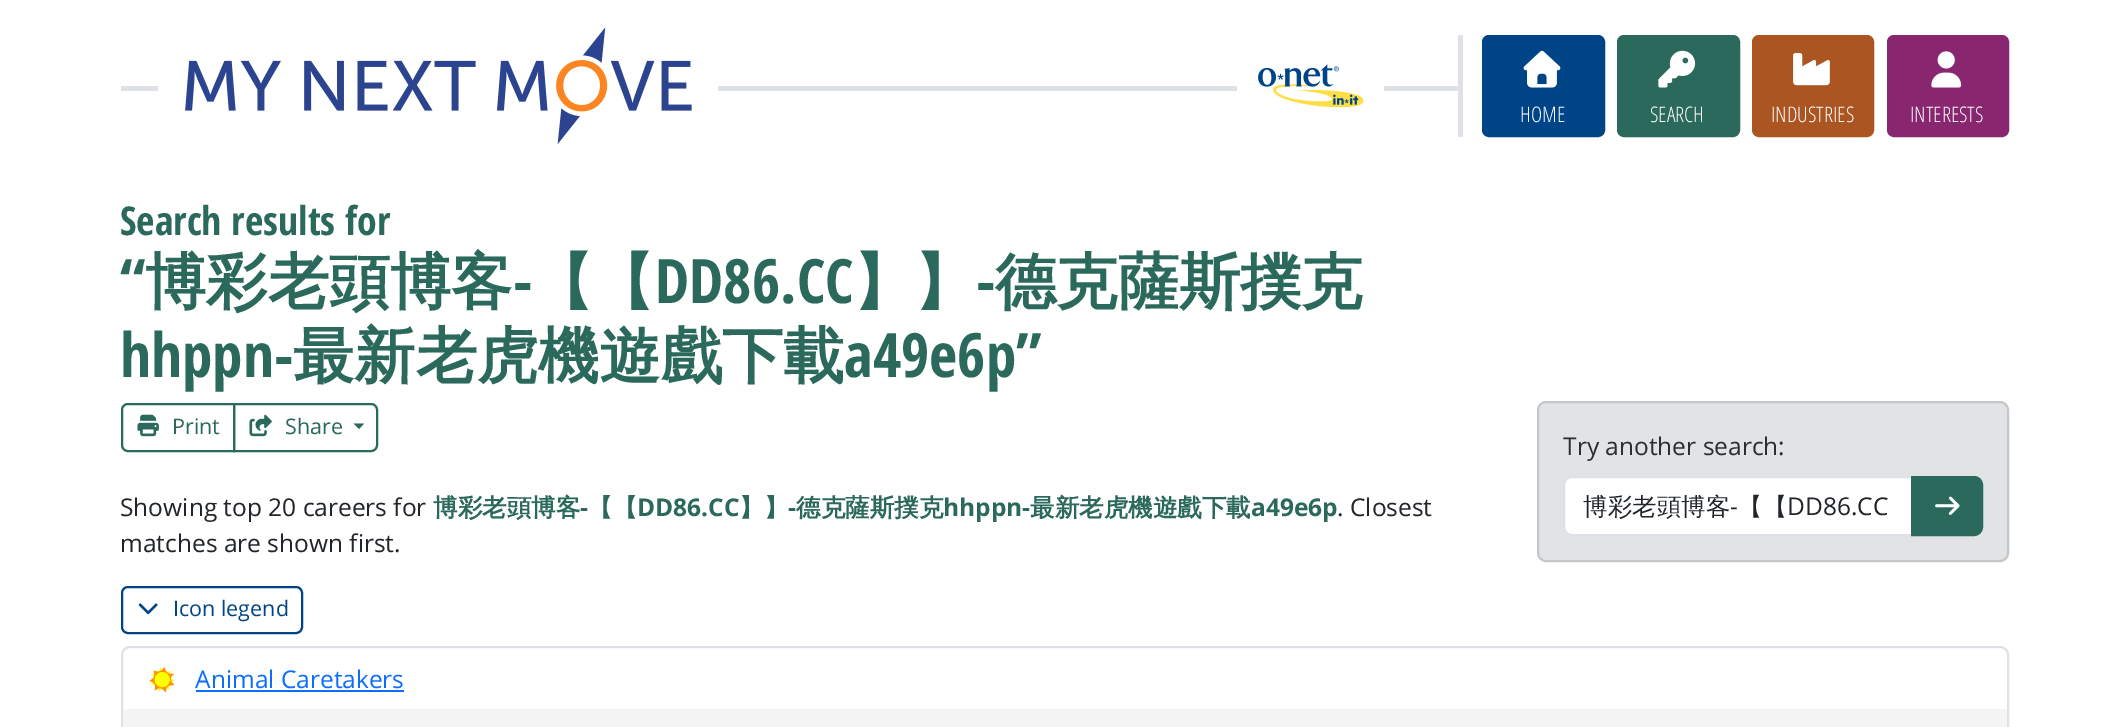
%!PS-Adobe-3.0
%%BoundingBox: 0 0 2128 727
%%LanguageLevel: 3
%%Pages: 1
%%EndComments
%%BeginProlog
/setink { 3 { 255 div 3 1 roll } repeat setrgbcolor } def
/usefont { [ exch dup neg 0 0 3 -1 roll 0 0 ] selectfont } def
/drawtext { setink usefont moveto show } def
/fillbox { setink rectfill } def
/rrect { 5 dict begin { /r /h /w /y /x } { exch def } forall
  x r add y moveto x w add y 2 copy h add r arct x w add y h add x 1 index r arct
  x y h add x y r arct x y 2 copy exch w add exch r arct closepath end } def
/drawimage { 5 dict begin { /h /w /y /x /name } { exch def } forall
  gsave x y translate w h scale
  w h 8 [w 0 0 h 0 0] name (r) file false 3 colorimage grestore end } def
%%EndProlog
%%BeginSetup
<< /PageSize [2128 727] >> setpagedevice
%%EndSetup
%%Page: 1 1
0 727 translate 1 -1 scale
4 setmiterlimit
0 0 2128 727 255 255 255 fillbox
121 86 1337 5 222 226 230 fillbox
158 86 560 5 255 255 255 fillbox
(assets/img1.rgb) 185 27 507 117 drawimage
1237 86 147 5 255 255 255 fillbox
(assets/img2.rgb) 1258 64 106 44 drawimage
1458 35 5 102 222 226 230 fillbox
0 68 136 setink
1483 36 121 100 6 rrect gsave fill grestore
2 setlinewidth
stroke
(assets/img3.rgb) 1523 50 38 38 drawimage
(HOME) 1520 122 /OpenSans-Light 21.5 255 255 255 drawtext
42 105 91 setink
1618 36 121 100 6 rrect gsave fill grestore
stroke
(assets/img4.rgb) 1658 50 38 38 drawimage
(SEARCH) 1650 122 /OpenSans-Light 21.5 255 255 255 drawtext
170 85 34 setink
1753 36 120 100 6 rrect gsave fill grestore
stroke
(assets/img5.rgb) 1793 53 37 33 drawimage
(INDUSTRIES) 1771 122 /OpenSans-Light 21.5 255 255 255 drawtext
136 39 112 setink
1888 36 120 100 6 rrect gsave fill grestore
stroke
(assets/img6.rgb) 1931 51 31 37 drawimage
(INTERESTS) 1910 122 /OpenSans-Light 21.5 255 255 255 drawtext
(Search results for) 120 235 /OpenSansCondensed-Bold 39.75 42 105 91 drawtext
(“) 120 303 /OpenSansCondensed-Bold 61.25 42 105 91 drawtext
(博彩老頭博客) 145 303 /WenQuanYiZenHei-Bold 61.25 42 105 91 drawtext
(【【) 532 303 /WenQuanYiZenHei-Bold 61.25 42 105 91 drawtext
(DD86.CC) 655 303 /OpenSansCondensed-Bold 61.25 42 105 91 drawtext
(】】) 853 303 /WenQuanYiZenHei-Bold 61.25 42 105 91 drawtext
(德克薩斯撲克) 995 303 /WenQuanYiZenHei-Bold 61.25 42 105 91 drawtext
(-) 513 303 /OpenSansCondensed-Bold 61.25 42 105 91 drawtext
(-) 976 303 /OpenSansCondensed-Bold 61.25 42 105 91 drawtext
(hhppn-) 120 377 /OpenSansCondensed-Bold 61.25 42 105 91 drawtext
(最新老虎機遊戲下載) 293 377 /WenQuanYiZenHei-Bold 61.25 42 105 91 drawtext
(a49e6p”) 844 377 /OpenSansCondensed-Bold 61.25 42 105 91 drawtext
128 404 moveto 234 404 lineto 234 451 lineto 128 451 lineto 124.5 451 122 448.5 122 445 curveto 122 410 lineto 122 406.5 124.5 404 128 404 curveto closepath stroke
(assets/img7.rgb) 137 414 22 23 drawimage
(Print) 172 434 /OpenSans-Regular 21.5 42 105 91 drawtext
234 404 moveto 371 404 lineto 374.5 404 377 406.5 377 410 curveto 377 445 lineto 377 448.5 374.5 451 371 451 curveto 234 451 lineto closepath stroke
(assets/img8.rgb) 249 414 23 23 drawimage
(Share) 285 434 /OpenSans-Regular 21.5 42 105 91 drawtext
353.5 423.5 moveto 364 423.5 lineto 359 429 lineto closepath fill
(Showing top 20 careers for) 120 516 /OpenSans-Regular 24.5 33 37 41 drawtext
(博彩老頭博客) 433 516 /WenQuanYiZenHei-Bold 24.5 42 105 91 drawtext
(-) 580 516 /OpenSans-Bold 24.5 42 105 91 drawtext
(【【) 588 516 /WenQuanYiZenHei-Bold 24.5 42 105 91 drawtext
(DD86.CC) 637 516 /OpenSans-Bold 24.5 42 105 91 drawtext
(】】) 739 516 /WenQuanYiZenHei-Bold 24.5 42 105 91 drawtext
(-) 788 516 /OpenSans-Bold 24.5 42 105 91 drawtext
(德克薩斯撲克) 796 516 /WenQuanYiZenHei-Bold 24.5 42 105 91 drawtext
(hhppn-) 943 516 /OpenSans-Bold 24.5 42 105 91 drawtext
(最新老虎機遊戲下載) 1030 516 /WenQuanYiZenHei-Bold 24.5 42 105 91 drawtext
(a49e6p) 1251 516 /OpenSans-Bold 24.5 42 105 91 drawtext
(. Closest) 1337 516 /OpenSans-Regular 24.5 33 37 41 drawtext
(matches are shown first.) 120 552 /OpenSans-Regular 24.5 33 37 41 drawtext
226 227 229 setink
1538 402 470 159 8 rrect gsave fill grestore
196 200 203 setink
stroke
(Try another search:) 1563 455 /OpenSans-Regular 24.5 43 47 50 drawtext
255 255 255 setink
1572 477 moveto 1912 477 lineto 1912 535 lineto 1572 535 lineto 1567.5 535 1564 531.5 1564 527 curveto 1564 485 lineto 1564 480.5 1567.5 477 1572 477 curveto closepath gsave fill grestore
222 226 230 setink
stroke
(博彩老頭博客) 1583 515 /WenQuanYiZenHei-Medium 24.5 33 37 41 drawtext
(-) 1730 515 /OpenSans-Regular 24.5 33 37 41 drawtext
(【【) 1738 515 /WenQuanYiZenHei-Medium 24.5 33 37 41 drawtext
(DD86.CC) 1787 515 /OpenSans-Regular 24.5 33 37 41 drawtext
42 105 91 setink
1912 477 moveto 1974 477 lineto 1978.5 477 1982 480.5 1982 485 curveto 1982 527 lineto 1982 531.5 1978.5 535 1974 535 curveto 1912 535 lineto closepath gsave fill grestore
stroke
(assets/img9.rgb) 1935 496 25 19 drawimage
0 68 136 setink
122 587 180 46 6 rrect stroke
(assets/img10.rgb) 138 603 20 12 drawimage
(Icon legend) 173 616 /OpenSans-Regular 21.5 0 68 136 drawtext
222 226 230 setink
122 647 1886 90 8 rrect stroke
(assets/img11.rgb) 149 667 26 26 drawimage
(Animal Caretakers) 195 688 /OpenSans-Regular 24.5 13 110 253 drawtext
196 690 208 2 13 110 253 fillbox
123 709 1884 18 244 244 244 fillbox
showpage
%%EOF
